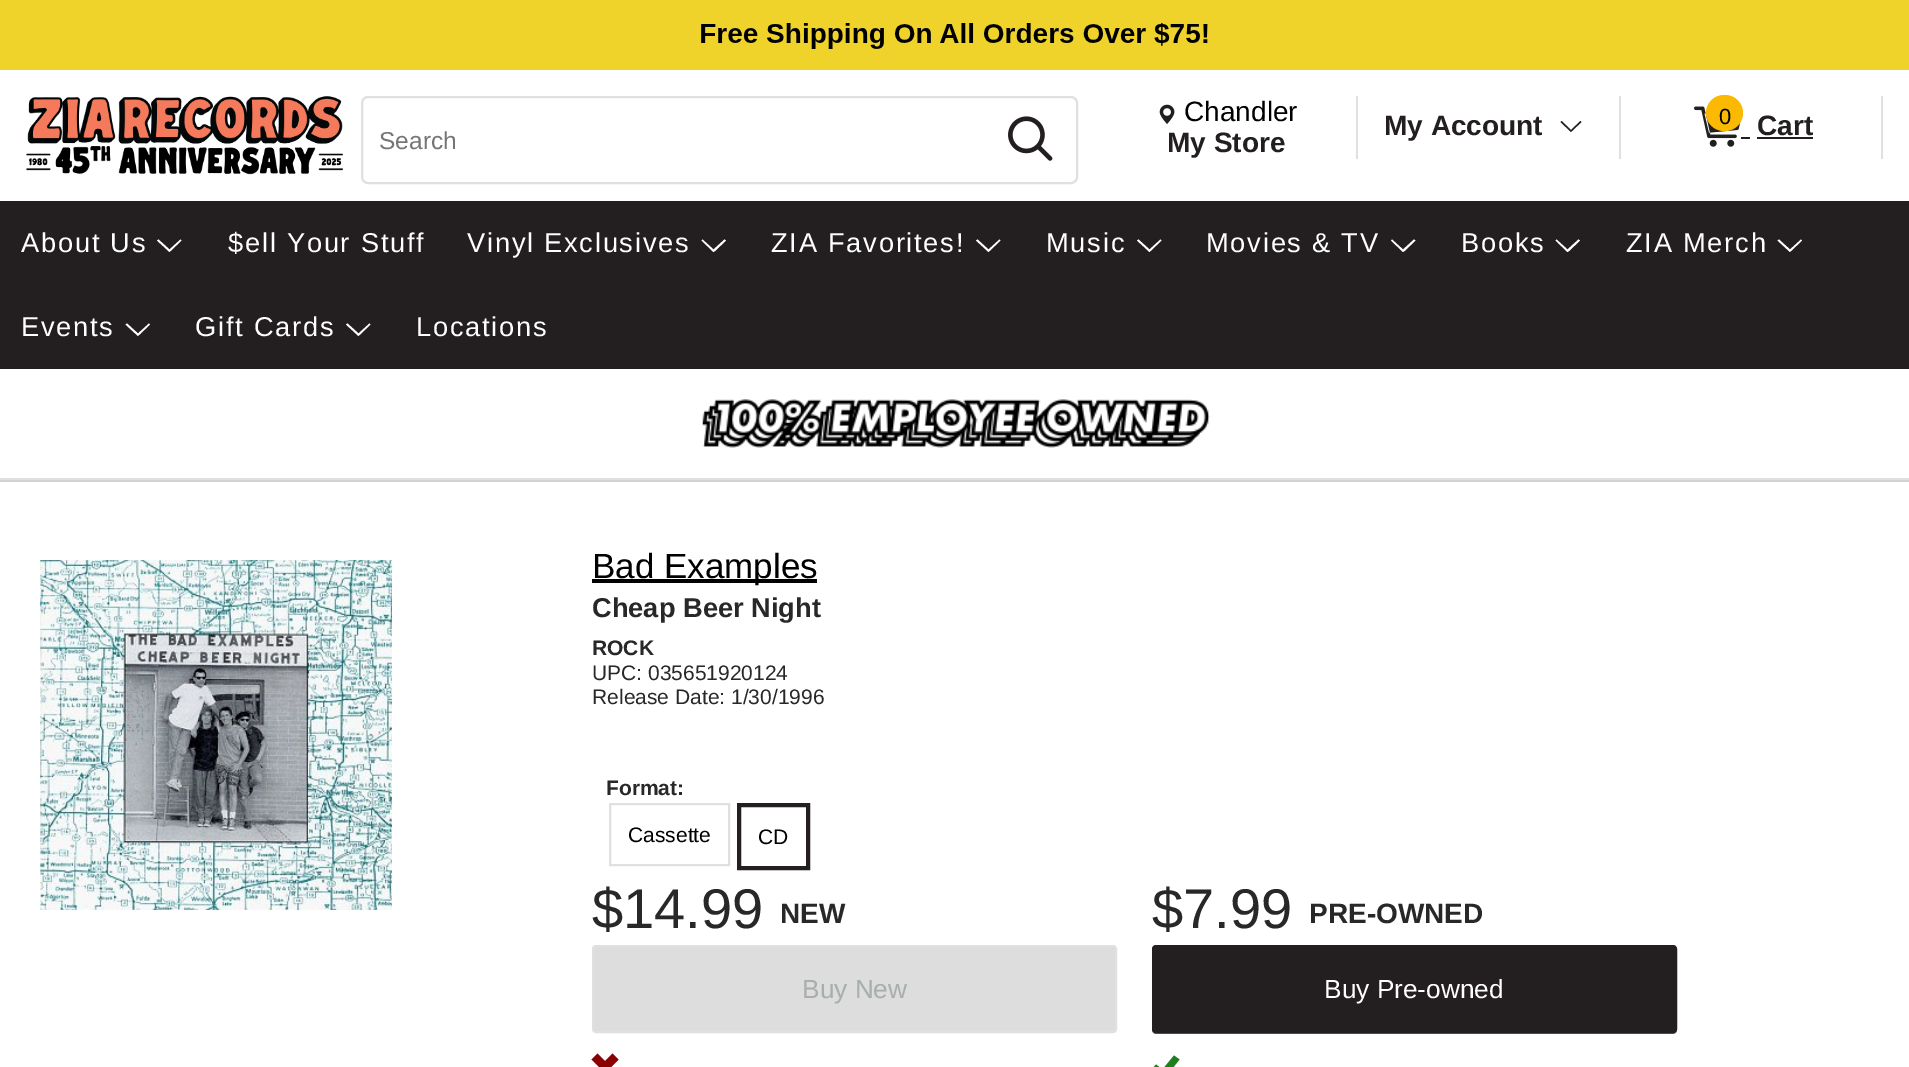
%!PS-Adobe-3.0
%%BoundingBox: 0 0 1909 1067
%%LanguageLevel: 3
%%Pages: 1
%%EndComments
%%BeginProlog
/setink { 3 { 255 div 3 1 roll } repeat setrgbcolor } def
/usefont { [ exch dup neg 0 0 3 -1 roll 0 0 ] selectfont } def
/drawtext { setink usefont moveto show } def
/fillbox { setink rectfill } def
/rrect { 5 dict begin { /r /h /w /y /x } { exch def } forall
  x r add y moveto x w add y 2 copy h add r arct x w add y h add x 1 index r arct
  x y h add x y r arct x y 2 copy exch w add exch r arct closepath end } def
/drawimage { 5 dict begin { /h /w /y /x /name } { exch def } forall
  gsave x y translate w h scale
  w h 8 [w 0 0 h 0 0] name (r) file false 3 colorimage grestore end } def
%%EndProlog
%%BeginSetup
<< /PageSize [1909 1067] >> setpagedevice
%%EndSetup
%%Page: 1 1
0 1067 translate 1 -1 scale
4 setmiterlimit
0 0 1909 1067 255 255 255 fillbox
0 0 1909 70 239 210 42 fillbox
(assets/img1.rgb) 701 23 507 26 drawimage
(assets/img2.rgb) 26 96 317 79 drawimage
224 224 224 setink
2 setlinewidth
362 97 715 86 6 rrect stroke
(Search) 379 149 /LiberationSans-Regular 24.5 117 117 117 drawtext
(assets/img3.rgb) 1008 116 45 45 drawimage
1356 96 2 63 224 224 224 fillbox
(assets/img4.rgb) 1159 104 16 20 drawimage
(Chandler) 1184 121 /LiberationSans-Regular 28 0 0 0 drawtext
(My Store) 1167 152 /LiberationSans-Bold 28 35 31 32 drawtext
1619 96 2 63 224 224 224 fillbox
(My Account) 1384 135 /LiberationSans-Bold 28 35 31 32 drawtext
1572 131 moveto 1581.5 122 lineto 1580.5 121 lineto 1571 130 lineto 1561.5 121 lineto 1560.5 122 lineto 1571 132 lineto closepath fill
1881 96 2 63 224 224 224 fillbox
(assets/img5.rgb) 1694 106 47 41 drawimage
251 185 1 setink
1706 95 37 36 18 rrect fill
(0) 1719 124 /LiberationSans-Regular 22 0 0 0 drawtext
(Cart) 1757 135 /LiberationSans-Bold 28 35 31 32 drawtext
1757 137 56 2 35 31 32 fillbox
1741 137 9 2 35 31 32 fillbox
0 201 1909 168 35 31 32 fillbox
/LiberationSans-Regular 27.25 usefont
255 255 255 setink
21 252 moveto 1.75 0 (About Us) ashow
170.5 251 moveto 181.5 240.5 lineto 180.5 239.5 lineto 169.5 249.5 lineto 158.5 239.5 lineto 157 240.5 lineto 169.5 252 lineto closepath fill
228 252 moveto 1.75 0 ($ell Your Stuff) ashow
467 252 moveto 1.75 0 (Vinyl Exclusives) ashow
715 251 moveto 726 240.5 lineto 724.5 239.5 lineto 713.5 249.5 lineto 702.5 239.5 lineto 701.5 240.5 lineto 713.5 252 lineto closepath fill
771 252 moveto 1.75 0 (ZIA Favorites!) ashow
989.5 251 moveto 1000.5 240.5 lineto 999.5 239.5 lineto 988.5 249.5 lineto 977.5 239.5 lineto 976 240.5 lineto 988.5 252 lineto closepath fill
1046 252 moveto 1.75 0 (Music) ashow
1150.5 251 moveto 1161.5 240.5 lineto 1160.5 239.5 lineto 1149.5 249.5 lineto 1138.5 239.5 lineto 1137 240.5 lineto 1149.5 252 lineto closepath fill
1206 252 moveto 1.75 0 (Movies & TV) ashow
1404.5 251 moveto 1415.5 240.5 lineto 1414 239.5 lineto 1403 249.5 lineto 1392 239.5 lineto 1391 240.5 lineto 1403 252 lineto closepath fill
1461 252 moveto 1.75 0 (Books) ashow
1569 251 moveto 1580 240.5 lineto 1578.5 239.5 lineto 1567.5 249.5 lineto 1556.5 239.5 lineto 1555.5 240.5 lineto 1567.5 252 lineto closepath fill
1626 252 moveto 1.75 0 (ZIA Merch) ashow
1791 251 moveto 1802 240.5 lineto 1801 239.5 lineto 1790 249.5 lineto 1779 239.5 lineto 1777.5 240.5 lineto 1790 252 lineto closepath fill
21 336 moveto 1.75 0 (Events) ashow
139 335 moveto 150 324.5 lineto 149 323.5 lineto 138 333.5 lineto 127 323.5 lineto 125.5 324.5 lineto 138 336 lineto closepath fill
195 336 moveto 1.75 0 (Gift Cards) ashow
359.5 335 moveto 370.5 324.5 lineto 369.5 323.5 lineto 358.5 333.5 lineto 347.5 323.5 lineto 346 324.5 lineto 358.5 336 lineto closepath fill
416 336 moveto 1.75 0 (Locations) ashow
0 478 1909 2 224 224 224 fillbox
(assets/img6.rgb) 702 399 508 49 drawimage
0 480 1909 2 211 211 211 fillbox
(assets/img7.rgb) 40 560 352 350 drawimage
592 579 225 4 0 0 0 fillbox
(Bad Examples) 592 578 /LiberationSans-Regular 35 0 0 0 drawtext
(Cheap Beer Night) 592 617 /LiberationSans-Bold 27.25 40 40 40 drawtext
(ROCK) 592 655 /LiberationSans-Bold 21 40 40 40 drawtext
(UPC: 035651920124) 592 680 /LiberationSans-Regular 21 40 40 40 drawtext
(Release Date: 1/30/1996) 592 704 /LiberationSans-Regular 21 40 40 40 drawtext
(Format:) 606 795 /LiberationSans-Bold 21 40 40 40 drawtext
224 224 224 setink
610 804 119 61 rectstroke
(Cassette) 628 842 /LiberationSans-Regular 21 0 0 0 drawtext
35 31 32 setink
4 setlinewidth
739 805 69 63 rectstroke
(CD) 758 844 /LiberationSans-Regular 21 0 0 0 drawtext
($14.99) 592 928 /LiberationSans-Regular 56 40 40 40 drawtext
(NEW) 780 923 /LiberationSans-Bold 28 40 40 40 drawtext
($7.99) 1152 928 /LiberationSans-Regular 56 40 40 40 drawtext
(PRE-OWNED) 1309 923 /LiberationSans-Bold 28 40 40 40 drawtext
221 221 221 setink
593 946 523 86 3 rrect gsave fill grestore
224 224 224 setink
2 setlinewidth
stroke
(Buy New) 802 998 /LiberationSans-Regular 26.25 168 173 174 drawtext
96 96 96 setink
1152 1030 moveto 1152 1032 1154 1034 1156 1034 curveto 1673 1034 lineto 1675 1034 1677 1032 1677 1030 curveto 1677 951 lineto 1676 949 lineto 1676 1015 lineto 1676 1016 1680 1032 1672 1032 curveto 1155 1032 lineto 1154 1032 1153 1031 1152 1030 curveto closepath fill
35 31 32 setink
1153 946 523 86 3 rrect gsave fill grestore
stroke
(Buy Pre-owned) 1324 998 /LiberationSans-Regular 26.25 255 255 255 drawtext
139 0 0 setink
597.5 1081 moveto 591.5 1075 lineto 612.5 1053.5 lineto 618.5 1059.5 lineto closepath 591.5 1059.5 moveto 597.5 1053.5 lineto 618.5 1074.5 lineto 612.5 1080.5 lineto closepath fill
31 127 31 setink
1162.5 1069.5 moveto 1174 1055.5 lineto 1179.5 1059.5 lineto 1163.5 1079.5 lineto 1151.5 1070 lineto 1156 1064.5 lineto closepath fill
showpage
%%EOF
